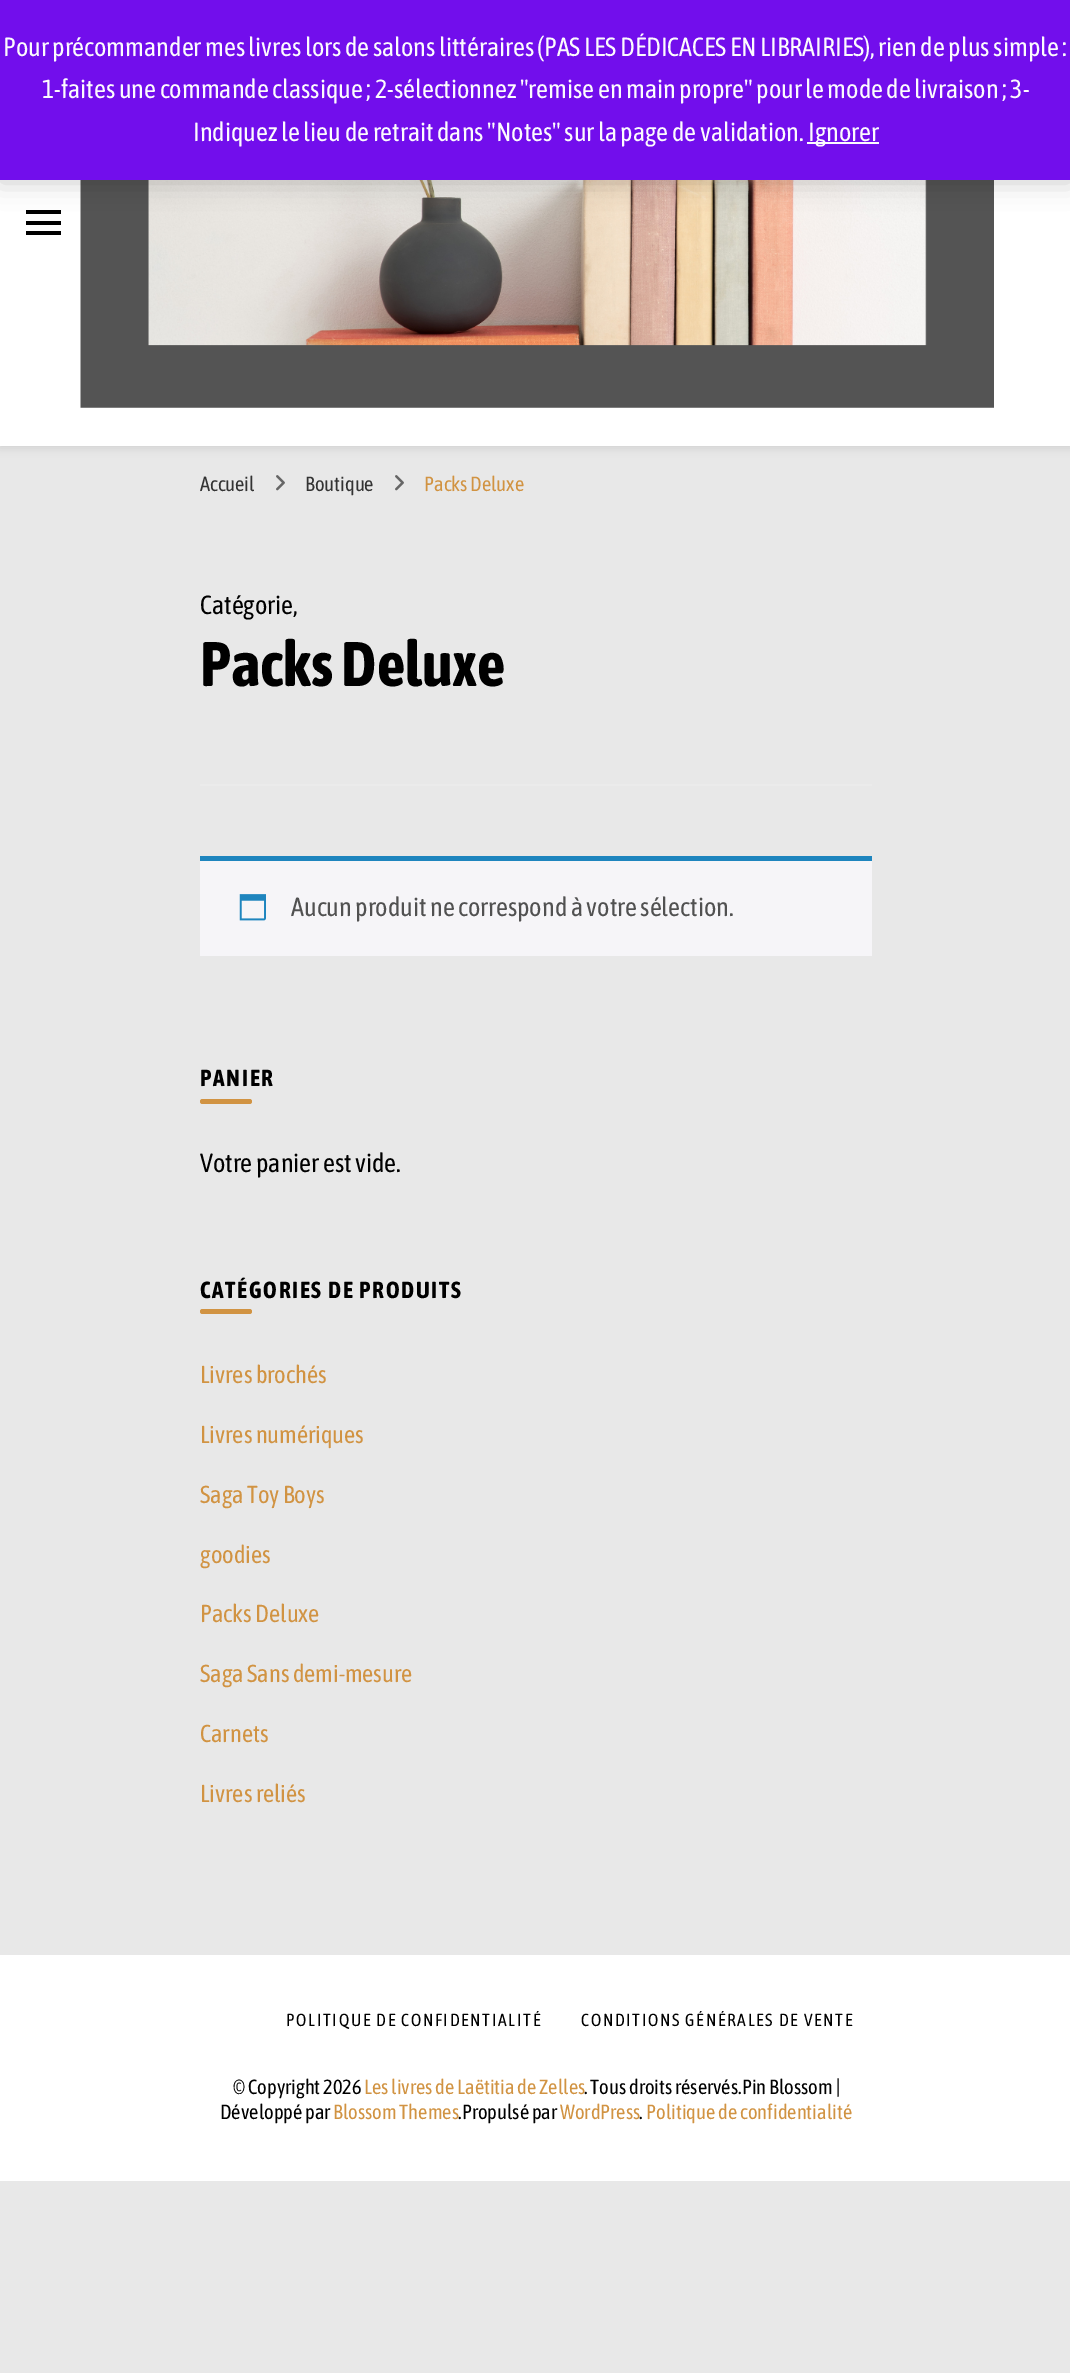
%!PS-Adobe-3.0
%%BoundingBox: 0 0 1070 2373
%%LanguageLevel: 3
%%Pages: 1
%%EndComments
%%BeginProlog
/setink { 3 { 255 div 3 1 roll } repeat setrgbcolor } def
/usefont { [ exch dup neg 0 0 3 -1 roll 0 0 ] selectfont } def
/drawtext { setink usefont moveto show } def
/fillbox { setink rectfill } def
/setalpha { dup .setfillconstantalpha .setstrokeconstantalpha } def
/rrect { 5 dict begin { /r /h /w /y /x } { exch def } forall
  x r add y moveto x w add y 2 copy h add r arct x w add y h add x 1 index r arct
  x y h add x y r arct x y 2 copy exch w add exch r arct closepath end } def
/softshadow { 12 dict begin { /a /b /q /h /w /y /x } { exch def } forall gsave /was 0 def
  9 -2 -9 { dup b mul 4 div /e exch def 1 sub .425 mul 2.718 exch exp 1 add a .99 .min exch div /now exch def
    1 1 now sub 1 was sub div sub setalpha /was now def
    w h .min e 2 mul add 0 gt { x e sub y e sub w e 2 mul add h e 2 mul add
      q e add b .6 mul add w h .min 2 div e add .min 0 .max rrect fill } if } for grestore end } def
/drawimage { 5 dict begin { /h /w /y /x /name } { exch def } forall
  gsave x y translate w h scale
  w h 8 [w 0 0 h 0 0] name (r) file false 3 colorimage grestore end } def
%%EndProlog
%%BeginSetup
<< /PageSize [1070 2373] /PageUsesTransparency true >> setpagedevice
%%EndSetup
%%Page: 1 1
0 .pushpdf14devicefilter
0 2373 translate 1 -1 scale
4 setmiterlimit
0 0 1070 2373 232 232 232 fillbox
0 0 0 setink
0 2 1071 446 0 4.5 0.1 softshadow
0 180 1070 266 255 255 255 fillbox
26 210 35 4 0 0 0 fillbox
26 221 35 4 0 0 0 fillbox
(assets/img1.rgb) 80 180 914 228 drawimage
0 2 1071 180 0 13 0.2 softshadow
0 0 1070 180 114 14 236 fillbox
(Pour précommander mes livres lors de salons littéraires \(PAS LES DÉDICACES EN LIBRAIRIES\), rien de plus simple :) 3 56 /AsapCondensed-Regular 26.25 252 251 254 drawtext
(1-faites une commande classique ; 2-sélectionnez "remise en main propre" pour le mode de livraison ; 3-) 42 98 /AsapCondensed-Regular 26.25 252 251 254 drawtext
(Indiquez le lieu de retrait dans "Notes" sur la page de validation.) 193 141 /AsapCondensed-Regular 26.25 252 251 254 drawtext
807 142 72 2 252 251 254 fillbox
(Ignorer) 808 141 /AsapCondensed-Regular 26.25 252 251 254 drawtext
26 231 35 4 0 0 0 fillbox
(Accueil) 200 491 /AsapCondensed-Regular 20.5 51 51 51 drawtext
(assets/img2.rgb) 276 475 9 16 drawimage
(Boutique) 305 491 /AsapCondensed-Regular 20.5 51 51 51 drawtext
(assets/img2.rgb) 395 475 9 16 drawimage
(Packs Deluxe) 424 491 /AsapCondensed-Regular 20.5 209 147 66 drawtext
200 784 672 2 235 235 235 fillbox
(Catégorie,) 200 614 /AsapCondensed-Regular 26.25 0 0 0 drawtext
(Packs Deluxe) 200 686 /AsapCondensed-Bold 62.75 0 0 0 drawtext
200 861 672 95 246 245 248 fillbox
200 856 672 5 30 133 190 fillbox
(assets/img3.rgb) 239 894 27 27 drawimage
(Aucun produit ne correspond à votre sélection.) 291 916 /AsapCondensed-Regular 26.25 81 81 81 drawtext
/AsapCondensed-Bold 23.3 usefont
0 0 0 setink
200 1086 moveto 1.75 0 (PANIER) ashow
209 147 66 setink
200 1099 52 5 2.5 rrect fill
(Votre panier est vide.) 200 1172 /AsapCondensed-Regular 26.25 0 0 0 drawtext
/AsapCondensed-Bold 23.3 usefont
200 1298 moveto 1.75 0 (CATÉGORIES DE PRODUITS) ashow
209 147 66 setink
200 1309 52 5 2.5 rrect fill
(Livres brochés) 200 1383 /AsapCondensed-Regular 24.5 209 147 66 drawtext
(Livres numériques) 200 1443 /AsapCondensed-Regular 24.5 209 147 66 drawtext
(Saga Toy Boys) 200 1503 /AsapCondensed-Regular 24.5 209 147 66 drawtext
(goodies) 200 1563 /AsapCondensed-Regular 24.5 209 147 66 drawtext
(Packs Deluxe) 200 1622 /AsapCondensed-Regular 24.5 209 147 66 drawtext
(Saga Sans demi-mesure) 200 1682 /AsapCondensed-Regular 24.5 209 147 66 drawtext
(Carnets) 200 1742 /AsapCondensed-Regular 24.5 209 147 66 drawtext
(Livres reliés) 200 1802 /AsapCondensed-Regular 24.5 209 147 66 drawtext
0 1955 1070 226 255 255 255 fillbox
/AsapCondensed-Regular 17.5 usefont
0 0 0 setink
286 2026 moveto 1.75 0 (POLITIQUE DE CONFIDENTIALITÉ) ashow
581 2026 moveto 1.75 0 (CONDITIONS GÉNÉRALES DE VENTE) ashow
(© Copyright 2026) 233 2094 /AsapCondensed-Regular 20.5 0 0 0 drawtext
(Les livres de Laëtitia de Zelles) 364 2094 /AsapCondensed-Regular 20.5 209 147 66 drawtext
(. Tous droits réservés.Pin Blossom |) 584 2094 /AsapCondensed-Regular 20.5 0 0 0 drawtext
(Développé par) 220 2119 /AsapCondensed-Regular 20.5 0 0 0 drawtext
(Blossom Themes) 333 2119 /AsapCondensed-Regular 20.5 209 147 66 drawtext
(.Propulsé par) 458 2119 /AsapCondensed-Regular 20.5 0 0 0 drawtext
(WordPress) 560 2119 /AsapCondensed-Regular 20.5 209 147 66 drawtext
(.) 639 2119 /AsapCondensed-Regular 20.5 0 0 0 drawtext
(Politique de confidentialité) 646 2119 /AsapCondensed-Regular 20.5 209 147 66 drawtext
.poppdf14devicefilter showpage
%%EOF
